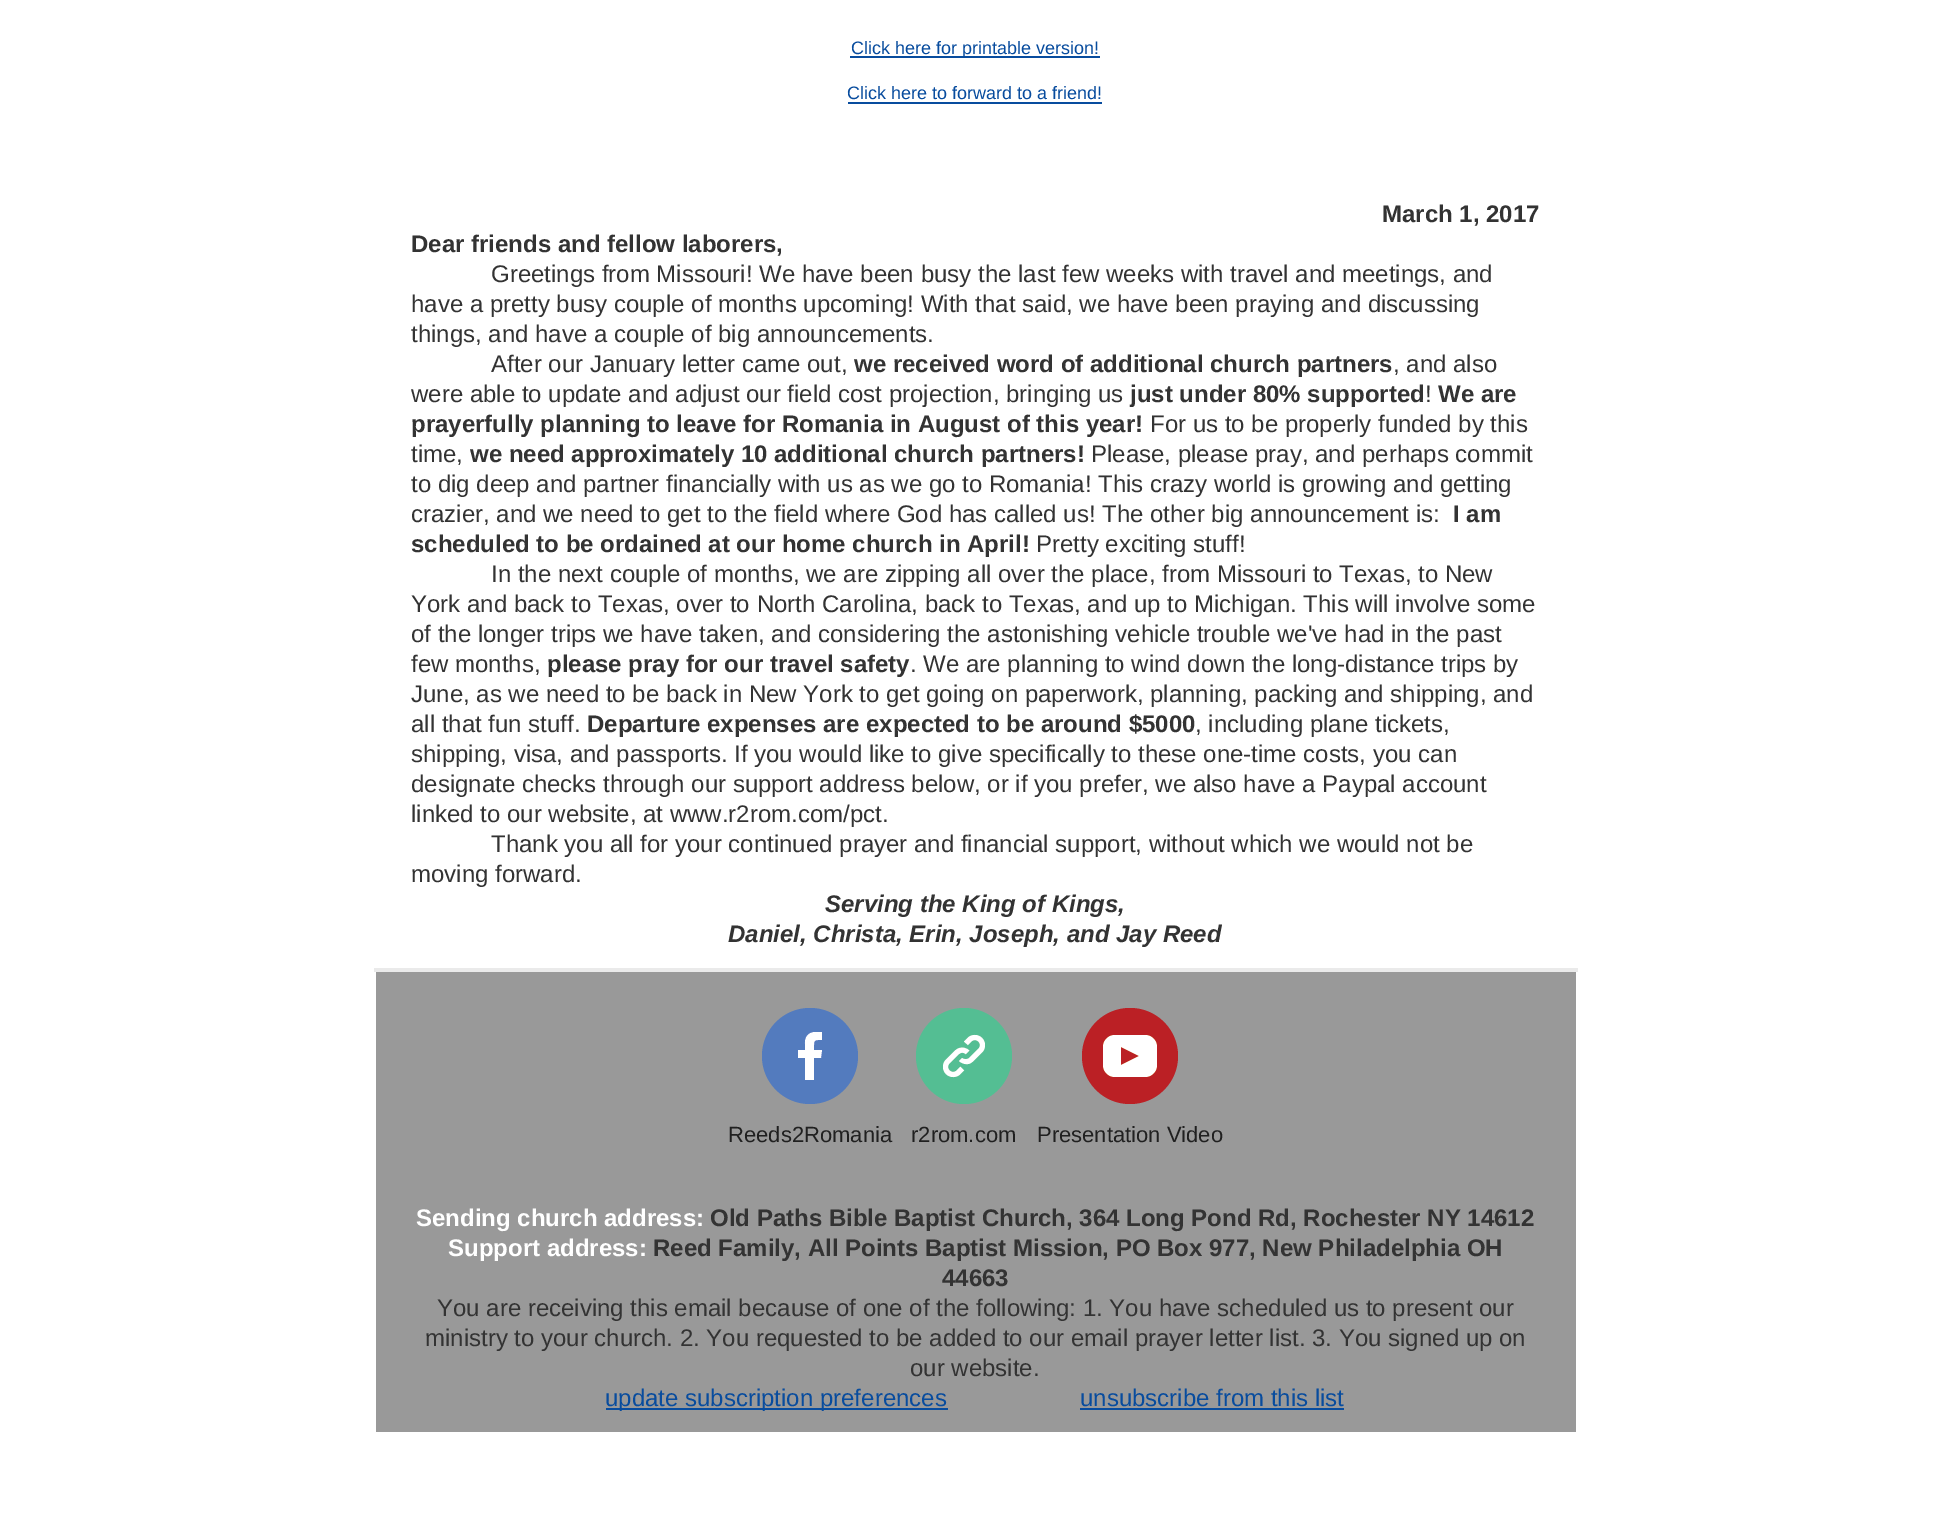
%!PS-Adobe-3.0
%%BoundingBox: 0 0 1949 1533
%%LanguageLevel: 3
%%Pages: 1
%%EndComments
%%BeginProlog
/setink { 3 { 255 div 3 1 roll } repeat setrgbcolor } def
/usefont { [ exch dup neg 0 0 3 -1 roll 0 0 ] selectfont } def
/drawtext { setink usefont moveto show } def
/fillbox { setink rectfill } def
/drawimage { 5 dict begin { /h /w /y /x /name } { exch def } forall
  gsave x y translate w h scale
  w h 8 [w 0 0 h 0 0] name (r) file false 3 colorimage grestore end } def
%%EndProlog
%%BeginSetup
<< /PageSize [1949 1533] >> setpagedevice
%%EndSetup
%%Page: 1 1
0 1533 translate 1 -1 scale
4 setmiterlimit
0 0 1949 1533 255 255 255 fillbox
850 56 250 2 8 76 158 fillbox
(Click here for printable version!) 851 54 /LiberationSans-Regular 18 8 76 158 drawtext
(Click here to forward to a friend!) 847 99 /LiberationSans-Regular 18 8 76 158 drawtext
848 102 254 2 8 76 158 fillbox
374 968 1204 4 234 234 234 fillbox
(March 1, 2017) 1382 222 /LiberationSans-Bold 24 51 51 51 drawtext
(Dear friends and fellow laborers,) 411 252 /LiberationSans-Bold 24 51 51 51 drawtext
(Greetings from Missouri! We have been busy the last few weeks with travel and meetings, and) 491 282 /LiberationSans-Regular 24 51 51 51 drawtext
(have a pretty busy couple of months upcoming! With that said, we have been praying and discussing) 411 312 /LiberationSans-Regular 24 51 51 51 drawtext
(things, and have a couple of big announcements.) 411 342 /LiberationSans-Regular 24 51 51 51 drawtext
(After our January letter came out,) 491 372 /LiberationSans-Regular 24 51 51 51 drawtext
(we received word of additional church partners) 854 372 /LiberationSans-Bold 24 51 51 51 drawtext
(, and also) 1393 372 /LiberationSans-Regular 24 51 51 51 drawtext
(were able to update and adjust our field cost projection, bringing us) 411 402 /LiberationSans-Regular 24 51 51 51 drawtext
(just under 80% supported) 1130 402 /LiberationSans-Bold 24 51 51 51 drawtext
(!) 1425 402 /LiberationSans-Regular 24 51 51 51 drawtext
(We are) 1438 402 /LiberationSans-Bold 24 51 51 51 drawtext
(prayerfully planning to leave for Romania in August of this year!) 411 432 /LiberationSans-Bold 24 51 51 51 drawtext
(For us to be properly funded by this) 1150 432 /LiberationSans-Regular 24 51 51 51 drawtext
(time,) 411 462 /LiberationSans-Regular 24 51 51 51 drawtext
(we need approximately 10 additional church partners!) 470 462 /LiberationSans-Bold 24 51 51 51 drawtext
(Please, please pray, and perhaps commit) 1091 462 /LiberationSans-Regular 24 51 51 51 drawtext
(to dig deep and partner financially with us as we go to Romania! This crazy world is growing and getting) 411 492 /LiberationSans-Regular 24 51 51 51 drawtext
(crazier, and we need to get to the field where God has called us! The other big announcement is:) 411 522 /LiberationSans-Regular 24 51 51 51 drawtext
(I am) 1453 522 /LiberationSans-Bold 24 51 51 51 drawtext
(scheduled to be ordained at our home church in April!) 411 552 /LiberationSans-Bold 24 51 51 51 drawtext
(Pretty exciting stuff!) 1036 552 /LiberationSans-Regular 24 51 51 51 drawtext
(In the next couple of months, we are zipping all over the place, from Missouri to Texas, to New) 491 582 /LiberationSans-Regular 24 51 51 51 drawtext
(York and back to Texas, over to North Carolina, back to Texas, and up to Michigan. This will involve some) 411 612 /LiberationSans-Regular 24 51 51 51 drawtext
(of the longer trips we have taken, and considering the astonishing vehicle trouble we've had in the past) 411 642 /LiberationSans-Regular 24 51 51 51 drawtext
(few months,) 411 672 /LiberationSans-Regular 24 51 51 51 drawtext
(please pray for our travel safety) 547 672 /LiberationSans-Bold 24 51 51 51 drawtext
(. We are planning to wind down the long-distance trips by) 910 672 /LiberationSans-Regular 24 51 51 51 drawtext
(June, as we need to be back in New York to get going on paperwork, planning, packing and shipping, and) 411 702 /LiberationSans-Regular 24 51 51 51 drawtext
(all that fun stuff.) 411 732 /LiberationSans-Regular 24 51 51 51 drawtext
(Departure expenses are expected to be around $5000) 587 732 /LiberationSans-Bold 24 51 51 51 drawtext
(, including plane tickets,) 1195 732 /LiberationSans-Regular 24 51 51 51 drawtext
(shipping, visa, and passports. If you would like to give specifically to these one-time costs, you can) 411 762 /LiberationSans-Regular 24 51 51 51 drawtext
(designate checks through our support address below, or if you prefer, we also have a Paypal account) 411 792 /LiberationSans-Regular 24 51 51 51 drawtext
(linked to our website, at www.r2rom.com/pct.) 411 822 /LiberationSans-Regular 24 51 51 51 drawtext
(Thank you all for your continued prayer and financial support, without which we would not be) 491 852 /LiberationSans-Regular 24 51 51 51 drawtext
(moving forward.) 411 882 /LiberationSans-Regular 24 51 51 51 drawtext
(Serving the King of Kings,) 825 912 /LiberationSans-BoldItalic 24 51 51 51 drawtext
(Daniel, Christa, Erin, Joseph, and Jay Reed) 728 942 /LiberationSans-BoldItalic 24 51 51 51 drawtext
376 972 1200 460 153 153 153 fillbox
(assets/img1.rgb) 762 1008 96 96 drawimage
(Reeds2Romania) 728 1142 /LiberationSans-Regular 22 32 32 32 drawtext
(assets/img2.rgb) 916 1008 96 96 drawimage
(r2rom.com) 911 1142 /LiberationSans-Regular 22 32 32 32 drawtext
(assets/img3.rgb) 1082 1008 96 96 drawimage
(Presentation Video) 1037 1142 /LiberationSans-Regular 22 32 32 32 drawtext
(Sending church address:) 416 1226 /LiberationSans-Bold 24 255 255 255 drawtext
(Old Paths Bible Baptist Church, 364 Long Pond Rd, Rochester NY 14612) 710 1226 /LiberationSans-Bold 24 51 51 51 drawtext
(Support address:) 448 1256 /LiberationSans-Bold 24 255 255 255 drawtext
(Reed Family, All Points Baptist Mission, PO Box 977, New Philadelphia OH) 653 1256 /LiberationSans-Bold 24 51 51 51 drawtext
(44663) 942 1286 /LiberationSans-Bold 24 51 51 51 drawtext
(You are receiving this email because of one of the following: 1. You have scheduled us to present our) 437 1316 /LiberationSans-Regular 24 51 51 51 drawtext
(ministry to your church. 2. You requested to be added to our email prayer letter list. 3. You signed up on) 425 1346 /LiberationSans-Regular 24 51 51 51 drawtext
(our website.) 910 1376 /LiberationSans-Regular 24 51 51 51 drawtext
606 1408 342 2 8 76 158 fillbox
(update subscription preferences) 605 1406 /LiberationSans-Regular 24 8 76 158 drawtext
(unsubscribe from this list) 1080 1406 /LiberationSans-Regular 24 8 76 158 drawtext
1080 1408 264 2 8 76 158 fillbox
showpage
%%EOF
